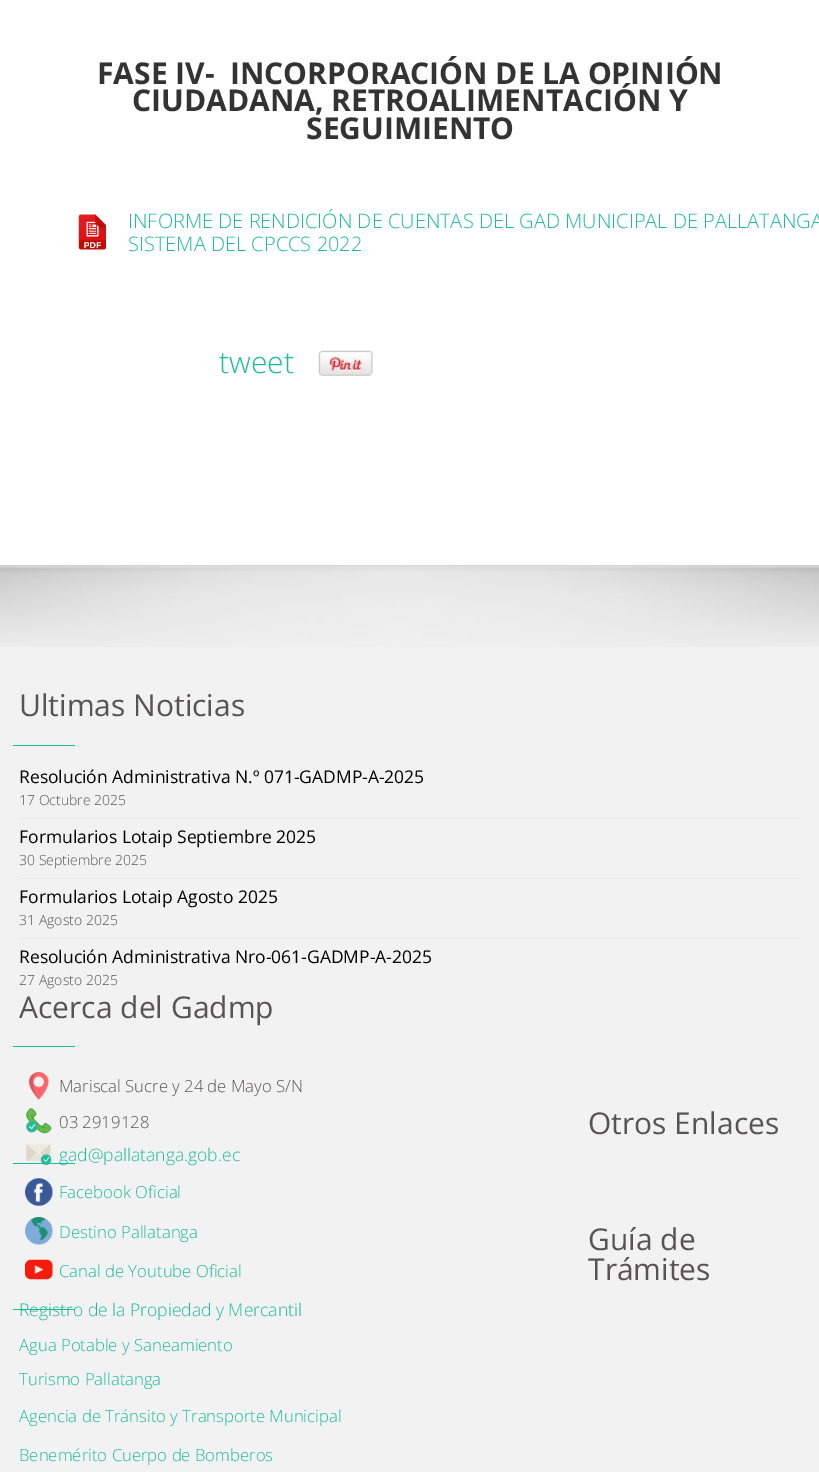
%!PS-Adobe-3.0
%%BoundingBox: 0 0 819 1472
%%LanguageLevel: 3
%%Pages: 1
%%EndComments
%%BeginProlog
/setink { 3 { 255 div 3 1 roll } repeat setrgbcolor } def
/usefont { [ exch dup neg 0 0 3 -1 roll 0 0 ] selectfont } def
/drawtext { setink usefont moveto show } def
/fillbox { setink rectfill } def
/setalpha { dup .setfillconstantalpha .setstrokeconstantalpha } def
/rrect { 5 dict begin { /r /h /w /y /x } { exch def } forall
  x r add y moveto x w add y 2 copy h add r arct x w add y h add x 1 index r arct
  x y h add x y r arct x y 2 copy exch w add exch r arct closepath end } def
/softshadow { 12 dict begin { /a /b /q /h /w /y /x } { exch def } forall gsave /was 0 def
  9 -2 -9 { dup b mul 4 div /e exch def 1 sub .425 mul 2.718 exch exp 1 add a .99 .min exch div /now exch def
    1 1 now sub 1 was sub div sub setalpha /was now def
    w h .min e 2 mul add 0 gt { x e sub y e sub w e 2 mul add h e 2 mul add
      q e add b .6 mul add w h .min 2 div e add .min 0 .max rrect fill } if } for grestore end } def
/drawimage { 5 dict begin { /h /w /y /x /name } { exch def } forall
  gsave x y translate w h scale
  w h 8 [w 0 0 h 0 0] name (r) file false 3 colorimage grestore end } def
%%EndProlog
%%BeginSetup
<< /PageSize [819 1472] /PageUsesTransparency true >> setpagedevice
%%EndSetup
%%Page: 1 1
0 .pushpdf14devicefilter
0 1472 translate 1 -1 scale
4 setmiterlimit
0 0 819 1472 242 242 242 fillbox
(assets/img3.rgb) 0 565 819 82 drawimage
0 0 0 setink
0 -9 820 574 0 3 0.2 softshadow
0 0 819 565 255 255 255 fillbox
(FASE IV-  INCORPORACIÓN DE LA OPINIÓN) 97 84 /OpenSans-Bold 30 51 51 51 drawtext
(CIUDADANA, RETROALIMENTACIÓN Y) 132 111 /OpenSans-Bold 30 51 51 51 drawtext
(SEGUIMIENTO) 306 139 /OpenSans-Bold 30 51 51 51 drawtext
(assets/img1.rgb) 78 214 28 36 drawimage
(INFORME DE RENDICIÓN DE CUENTAS DEL GAD MUNICIPAL DE PALLATANGA) 128 228 /OpenSans-Light 20 27 188 155 drawtext
(SISTEMA DEL CPCCS 2022) 128 251 /OpenSans-Light 20 27 188 155 drawtext
(tweet) 219 373 /OpenSans-Light 30 27 188 155 drawtext
(assets/img2.rgb) 318 350 55 26 drawimage
(Ultimas Noticias) 19 716 /OpenSans-Regular 30 87 84 84 drawtext
27 188 155 setink
13 745 62 1 0.5 rrect fill
19 818 782 1 232 232 232 fillbox
(Resolución Administrativa N.º 071-GADMP-A-2025) 19 783 /OpenSans-Regular 17.5 0 0 0 drawtext
(17 Octubre 2025) 19 805 /OpenSans-Light 14 87 84 84 drawtext
19 878 782 1 232 232 232 fillbox
(Formularios Lotaip Septiembre 2025) 19 843 /OpenSans-Regular 17.5 0 0 0 drawtext
(30 Septiembre 2025) 19 865 /OpenSans-Light 14 87 84 84 drawtext
19 938 782 1 232 232 232 fillbox
(Formularios Lotaip Agosto 2025) 19 903 /OpenSans-Regular 17.5 0 0 0 drawtext
(31 Agosto 2025) 19 925 /OpenSans-Light 14 87 84 84 drawtext
(Resolución Administrativa Nro-061-GADMP-A-2025) 19 963 /OpenSans-Regular 17.5 0 0 0 drawtext
(27 Agosto 2025) 19 985 /OpenSans-Light 14 87 84 84 drawtext
(Acerca del Gadmp) 19 1018 /OpenSans-Regular 30 87 84 84 drawtext
27 188 155 setink
13 1046 62 1 0.5 rrect fill
(assets/img4.rgb) 28 1072 21 28 drawimage
(Mariscal Sucre y 24 de Mayo S/N) 59 1092 /OpenSans-Light 16.7 87 84 84 drawtext
(assets/img5.rgb) 26 1108 26 26 drawimage
(03 2919128) 59 1128 /OpenSans-Light 16.7 87 84 84 drawtext
(assets/img6.rgb) 26 1144 26 22 drawimage
(gad@pallatanga.gob.ec) 59 1161 /OpenSans-Light 17.5 27 188 155 drawtext
(assets/img7.rgb) 25 1178 28 28 drawimage
(Facebook Oficial) 59 1198 /OpenSans-Light 16.7 27 188 155 drawtext
(assets/img8.rgb) 25 1217 28 28 drawimage
(Destino Pallatanga) 59 1238 /OpenSans-Light 16.7 27 188 155 drawtext
(assets/img9.rgb) 25 1259 28 21 drawimage
(Canal de Youtube Oficial) 59 1277 /OpenSans-Light 16.7 27 188 155 drawtext
(Otros Enlaces) 588 1134 /OpenSans-Regular 30 87 84 84 drawtext
27 188 155 setink
13 1163 62 1 0.5 rrect fill
(Registro de la Propiedad y Mercantil) 19 1316 /OpenSans-Light 17.5 27 188 155 drawtext
(Agua Potable y Saneamiento) 19 1351 /OpenSans-Light 16.7 27 188 155 drawtext
(Turismo Pallatanga) 19 1385 /OpenSans-Light 16.7 27 188 155 drawtext
(Agencia de Tránsito y Transporte Municipal) 19 1422 /OpenSans-Light 16.7 27 188 155 drawtext
(Benemérito Cuerpo de Bomberos) 19 1461 /OpenSans-Light 16.7 27 188 155 drawtext
(Guía de) 588 1250 /OpenSans-Regular 30 87 84 84 drawtext
(Trámites) 588 1280 /OpenSans-Regular 30 87 84 84 drawtext
27 188 155 setink
13 1309 62 1 0.5 rrect fill
.poppdf14devicefilter showpage
%%EOF
